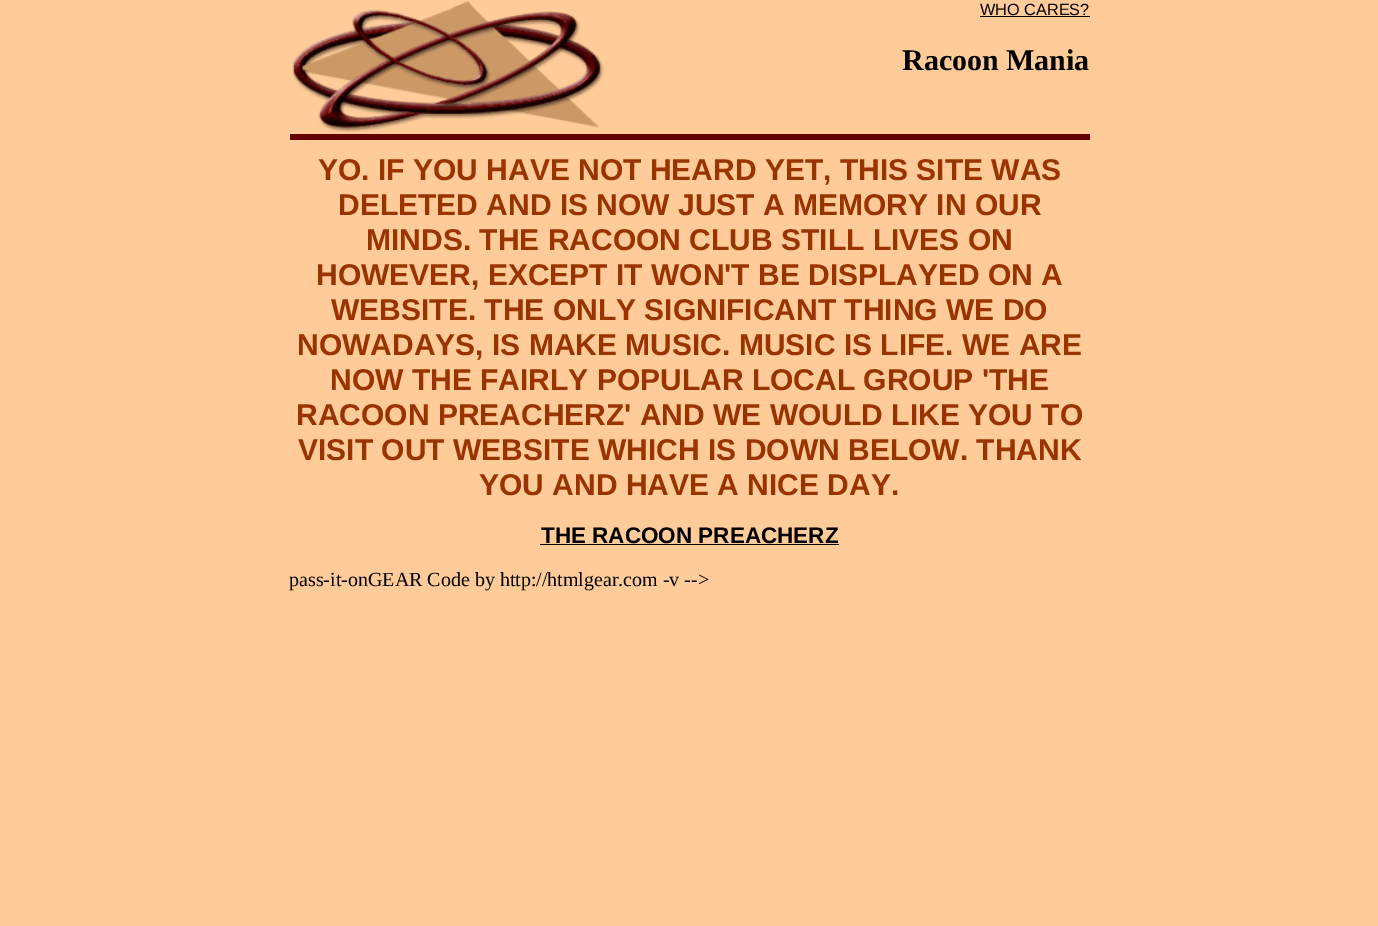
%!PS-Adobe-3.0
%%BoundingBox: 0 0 1378 926
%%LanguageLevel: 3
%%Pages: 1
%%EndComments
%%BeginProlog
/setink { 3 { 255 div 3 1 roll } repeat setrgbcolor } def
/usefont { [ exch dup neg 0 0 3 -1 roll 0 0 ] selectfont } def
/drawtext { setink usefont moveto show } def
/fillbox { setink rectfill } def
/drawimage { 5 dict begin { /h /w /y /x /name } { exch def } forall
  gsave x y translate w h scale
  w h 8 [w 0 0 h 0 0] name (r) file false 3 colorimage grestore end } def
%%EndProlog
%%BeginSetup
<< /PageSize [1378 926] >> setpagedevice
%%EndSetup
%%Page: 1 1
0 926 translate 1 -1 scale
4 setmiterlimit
0 0 1378 926 255 204 153 fillbox
(assets/img1.rgb) 292 1 312 132 drawimage
(WHO CARES?) 980 15 /LiberationSans-Regular 16.25 0 0 0 drawtext
980 16 110 1 0 0 0 fillbox
(Racoon Mania) 902 70 /LiberationSerif-Bold 30 0 0 0 drawtext
290 134 800 6 102 0 0 fillbox
(YO. IF YOU HAVE NOT HEARD YET, THIS SITE WAS) 318 180 /LiberationSans-Bold 30 153 51 0 drawtext
(DELETED AND IS NOW JUST A MEMORY IN OUR) 338 215 /LiberationSans-Bold 30 153 51 0 drawtext
(MINDS. THE RACOON CLUB STILL LIVES ON) 366 250 /LiberationSans-Bold 30 153 51 0 drawtext
(HOWEVER, EXCEPT IT WON'T BE DISPLAYED ON A) 316 285 /LiberationSans-Bold 30 153 51 0 drawtext
(WEBSITE. THE ONLY SIGNIFICANT THING WE DO) 331 320 /LiberationSans-Bold 30 153 51 0 drawtext
(NOWADAYS, IS MAKE MUSIC. MUSIC IS LIFE. WE ARE) 297 355 /LiberationSans-Bold 30 153 51 0 drawtext
(NOW THE FAIRLY POPULAR LOCAL GROUP 'THE) 330 390 /LiberationSans-Bold 30 153 51 0 drawtext
(RACOON PREACHERZ' AND WE WOULD LIKE YOU TO) 296 425 /LiberationSans-Bold 30 153 51 0 drawtext
(VISIT OUT WEBSITE WHICH IS DOWN BELOW. THANK) 298 460 /LiberationSans-Bold 30 153 51 0 drawtext
(YOU AND HAVE A NICE DAY.) 479 495 /LiberationSans-Bold 30 153 51 0 drawtext
(THE RACOON PREACHERZ) 541 543 /LiberationSans-Bold 22.5 0 0 0 drawtext
540 544 299 1 0 0 0 fillbox
(pass-it-onGEAR Code by http://htmlgear.com -v -->) 289 586 /LiberationSerif-Regular 20 0 0 0 drawtext
showpage
%%EOF
